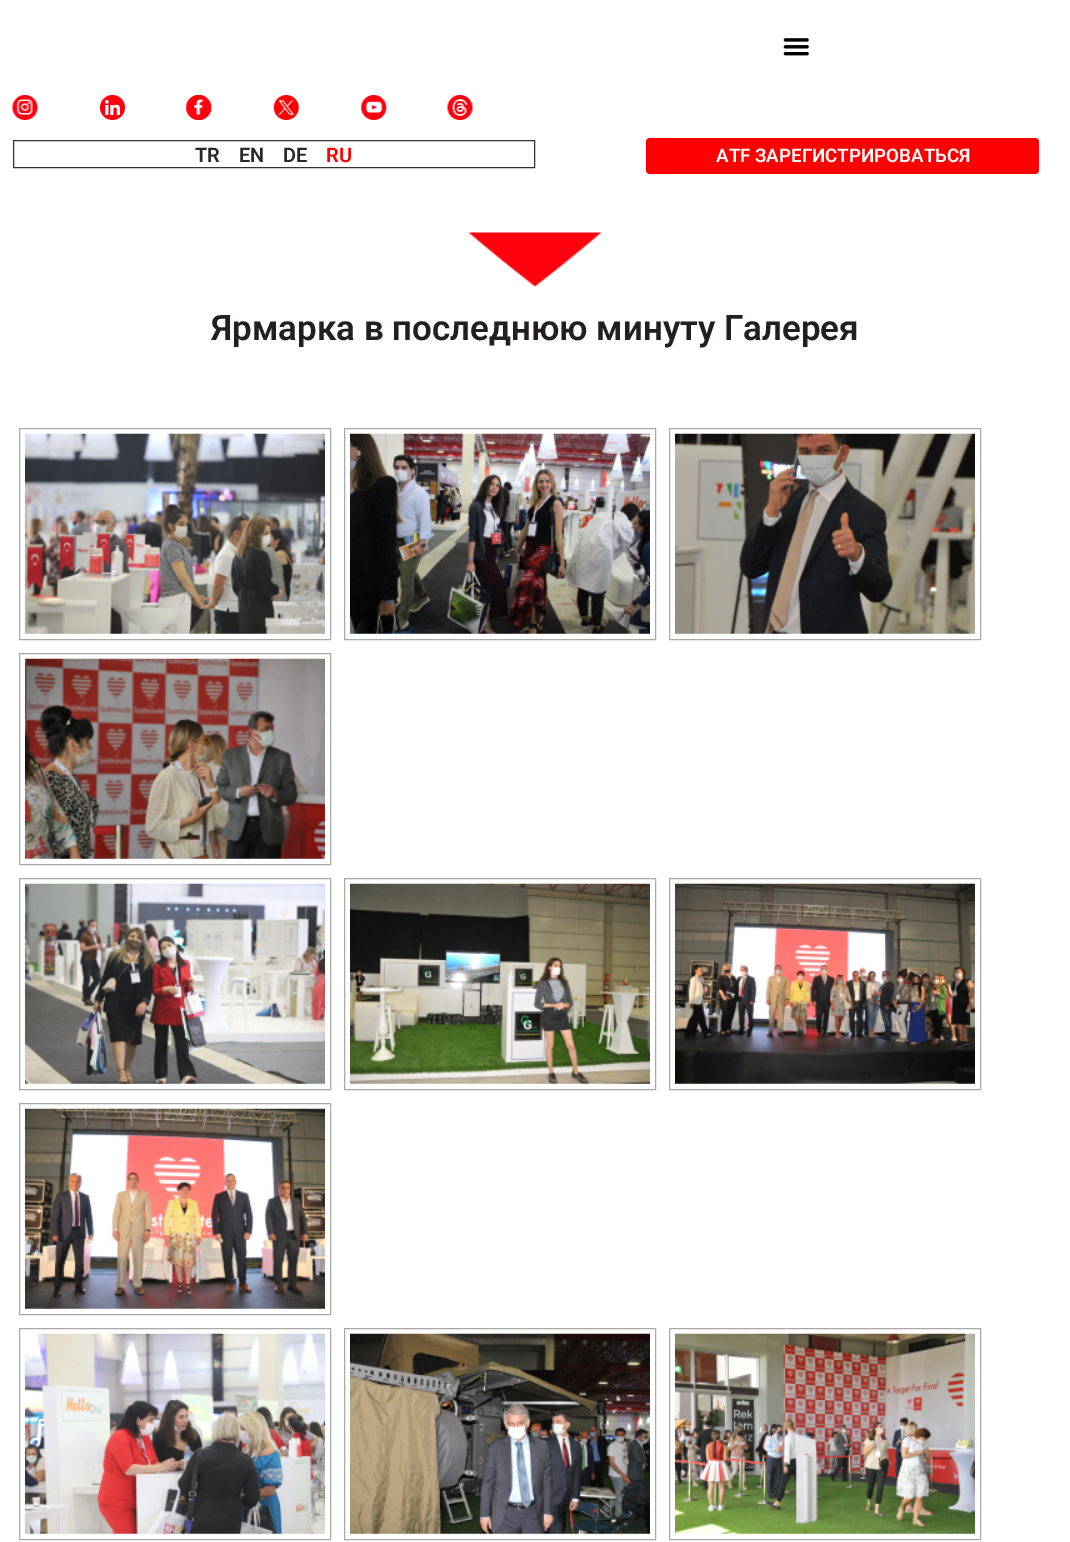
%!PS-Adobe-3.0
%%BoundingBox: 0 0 1070 1542
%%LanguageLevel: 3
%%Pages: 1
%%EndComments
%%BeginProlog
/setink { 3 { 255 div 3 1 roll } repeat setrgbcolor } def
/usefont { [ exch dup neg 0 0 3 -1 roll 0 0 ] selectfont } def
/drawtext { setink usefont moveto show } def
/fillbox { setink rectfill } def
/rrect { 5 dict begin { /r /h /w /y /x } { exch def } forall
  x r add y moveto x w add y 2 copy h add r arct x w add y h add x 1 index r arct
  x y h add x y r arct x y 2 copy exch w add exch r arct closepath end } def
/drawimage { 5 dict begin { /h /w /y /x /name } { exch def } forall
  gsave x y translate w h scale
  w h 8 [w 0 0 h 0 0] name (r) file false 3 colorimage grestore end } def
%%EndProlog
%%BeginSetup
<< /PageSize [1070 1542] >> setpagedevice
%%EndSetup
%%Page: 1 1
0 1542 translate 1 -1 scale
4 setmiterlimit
0 0 1070 1542 255 255 255 fillbox
(assets/img1.rgb) 783 38 26 18 drawimage
(assets/img2.rgb) 12 95 26 25 drawimage
(assets/img3.rgb) 100 95 25 25 drawimage
(assets/img4.rgb) 186 95 26 25 drawimage
(assets/img5.rgb) 273 95 26 25 drawimage
(assets/img6.rgb) 361 95 26 25 drawimage
(assets/img7.rgb) 447 95 26 25 drawimage
51 51 51 setink
13.5 140.5 521 27 rectstroke
(TR) 195 162 /Roboto-SemiBold 20 41 41 41 drawtext
(EN) 239 162 /Roboto-SemiBold 20 41 41 41 drawtext
(DE) 283 162 /Roboto-SemiBold 20 41 41 41 drawtext
(RU) 326 162 /Roboto-SemiBold 20 255 0 0 drawtext
646 138 393 36 4 rrect fill
(ATF ЗАРЕГИСТРИРОВАТЬСЯ) 716 162 /Roboto-SemiBold 18.75 255 255 255 drawtext
(assets/img8.rgb) 468 232 134 55 drawimage
(Ярмарка в последнюю минуту Галерея) 211 340 /Roboto-SemiBold 35 35 31 32 drawtext
169 169 169 setink
19.5 428.5 311 211 rectstroke
(assets/img9.rgb) 25 433 300 201 drawimage
344.5 428.5 311 211 rectstroke
(assets/img10.rgb) 350 433 300 201 drawimage
669.5 428.5 311 211 rectstroke
(assets/img11.rgb) 675 433 300 201 drawimage
19.5 653.5 311 211 rectstroke
(assets/img12.rgb) 25 658 300 201 drawimage
19.5 878.5 311 211 rectstroke
(assets/img13.rgb) 25 883 300 201 drawimage
344.5 878.5 311 211 rectstroke
(assets/img14.rgb) 350 883 300 201 drawimage
669.5 878.5 311 211 rectstroke
(assets/img15.rgb) 675 883 300 201 drawimage
19.5 1103.5 311 211 rectstroke
(assets/img16.rgb) 25 1108 300 201 drawimage
19.5 1328.5 311 211 rectstroke
(assets/img17.rgb) 25 1333 300 201 drawimage
344.5 1328.5 311 211 rectstroke
(assets/img18.rgb) 350 1333 300 201 drawimage
669.5 1328.5 311 211 rectstroke
(assets/img19.rgb) 675 1333 300 201 drawimage
showpage
%%EOF
